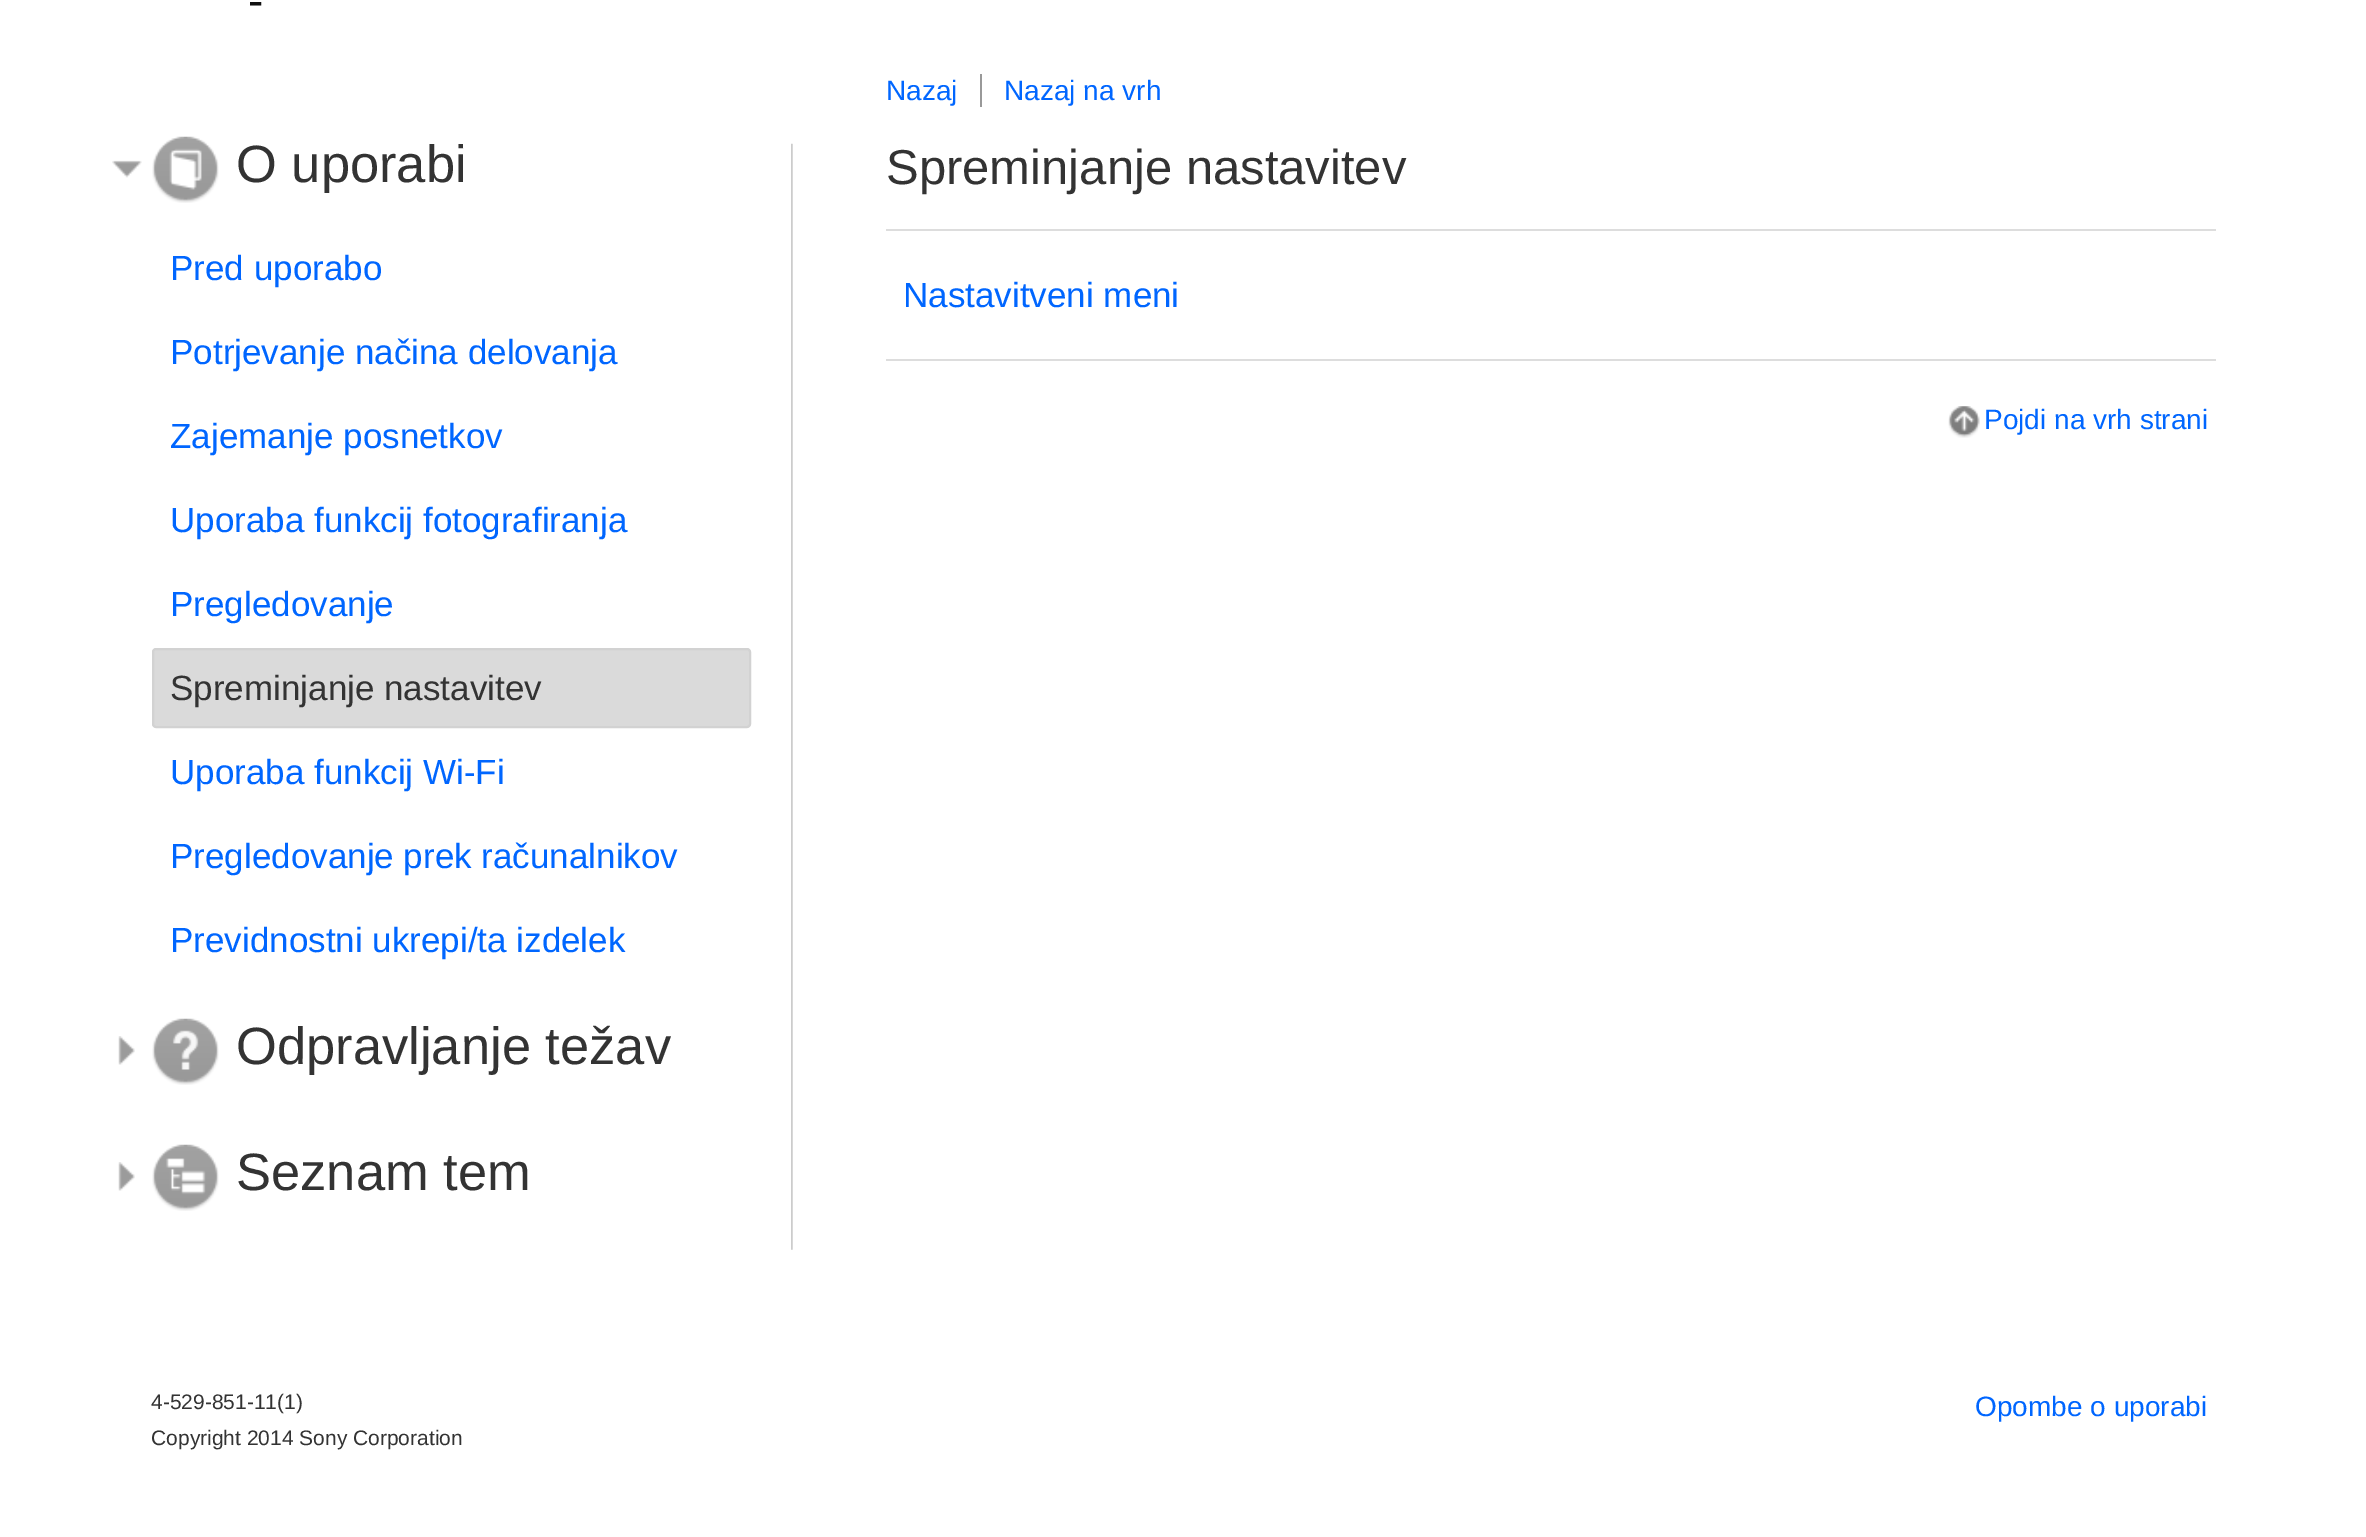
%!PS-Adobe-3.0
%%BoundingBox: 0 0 2366 1537
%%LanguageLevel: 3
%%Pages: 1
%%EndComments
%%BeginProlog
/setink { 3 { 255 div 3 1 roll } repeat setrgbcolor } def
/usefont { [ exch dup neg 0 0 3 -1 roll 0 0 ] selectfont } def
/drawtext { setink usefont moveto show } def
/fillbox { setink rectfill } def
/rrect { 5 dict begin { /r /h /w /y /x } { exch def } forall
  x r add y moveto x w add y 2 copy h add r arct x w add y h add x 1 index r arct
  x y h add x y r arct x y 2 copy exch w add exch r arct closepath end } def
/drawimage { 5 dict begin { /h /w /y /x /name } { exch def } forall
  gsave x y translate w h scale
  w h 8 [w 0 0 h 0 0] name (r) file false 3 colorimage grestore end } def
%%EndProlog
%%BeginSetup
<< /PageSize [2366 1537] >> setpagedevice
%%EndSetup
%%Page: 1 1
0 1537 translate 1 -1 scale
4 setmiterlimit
0 0 2366 1537 255 255 255 fillbox
(-) 248 16 /LiberationSans-Regular 46 16 16 16 drawtext
(assets/img1.rgb) 791 143 2 1107 drawimage
(assets/img2.rgb) 112 160 30 18 drawimage
(assets/img3.rgb) 152 136 67 67 drawimage
(O uporabi) 236 182 /LiberationSans-Regular 52.5 51 51 51 drawtext
(Pred uporabo) 170 280 /LiberationSans-Regular 35 0 102 255 drawtext
(Potrjevanje načina delovanja) 170 364 /LiberationSans-Regular 35 0 102 255 drawtext
(Zajemanje posnetkov) 170 448 /LiberationSans-Regular 35 0 102 255 drawtext
(Uporaba funkcij fotografiranja) 170 532 /LiberationSans-Regular 35 0 102 255 drawtext
(Pregledovanje) 170 616 /LiberationSans-Regular 35 0 102 255 drawtext
218 218 218 setink
153 649 597 78 3 rrect gsave fill grestore
210 210 210 setink
2 setlinewidth
stroke
(Spreminjanje nastavitev) 170 700 /LiberationSans-Regular 35 51 51 51 drawtext
(Uporaba funkcij Wi-Fi) 170 784 /LiberationSans-Regular 35 0 102 255 drawtext
(Pregledovanje prek računalnikov) 170 868 /LiberationSans-Regular 35 0 102 255 drawtext
(Previdnostni ukrepi/ta izdelek) 170 952 /LiberationSans-Regular 35 0 102 255 drawtext
(assets/img4.rgb) 118 1036 17 29 drawimage
(assets/img5.rgb) 152 1018 67 67 drawimage
(Odpravljanje težav) 236 1064 /LiberationSans-Regular 52.5 51 51 51 drawtext
(assets/img4.rgb) 118 1162 17 29 drawimage
(assets/img6.rgb) 152 1144 67 67 drawimage
(Seznam tem) 236 1190 /LiberationSans-Regular 52.5 51 51 51 drawtext
(Nazaj) 886 100 /LiberationSans-Regular 28 0 102 255 drawtext
980 74 2 33 153 153 153 fillbox
(Nazaj na vrh) 1004 100 /LiberationSans-Regular 28 0 102 255 drawtext
886 229 1330 2 221 221 221 fillbox
(Spreminjanje nastavitev) 886 184 /LiberationSans-Regular 49 51 51 51 drawtext
886 359 1330 2 221 221 221 fillbox
(Nastavitveni meni) 903 307 /LiberationSans-Regular 35 0 102 255 drawtext
(assets/img7.rgb) 1948 406 32 32 drawimage
(Pojdi na vrh strani) 1984 429 /LiberationSans-Regular 28 0 102 255 drawtext
(4-529-851-11\(1\)) 151 1409 /LiberationSans-Regular 21 51 51 51 drawtext
(Copyright 2014 Sony Corporation) 151 1445 /LiberationSans-Regular 21 51 51 51 drawtext
(Opombe o uporabi) 1975 1416 /LiberationSans-Regular 28 0 102 255 drawtext
showpage
%%EOF
